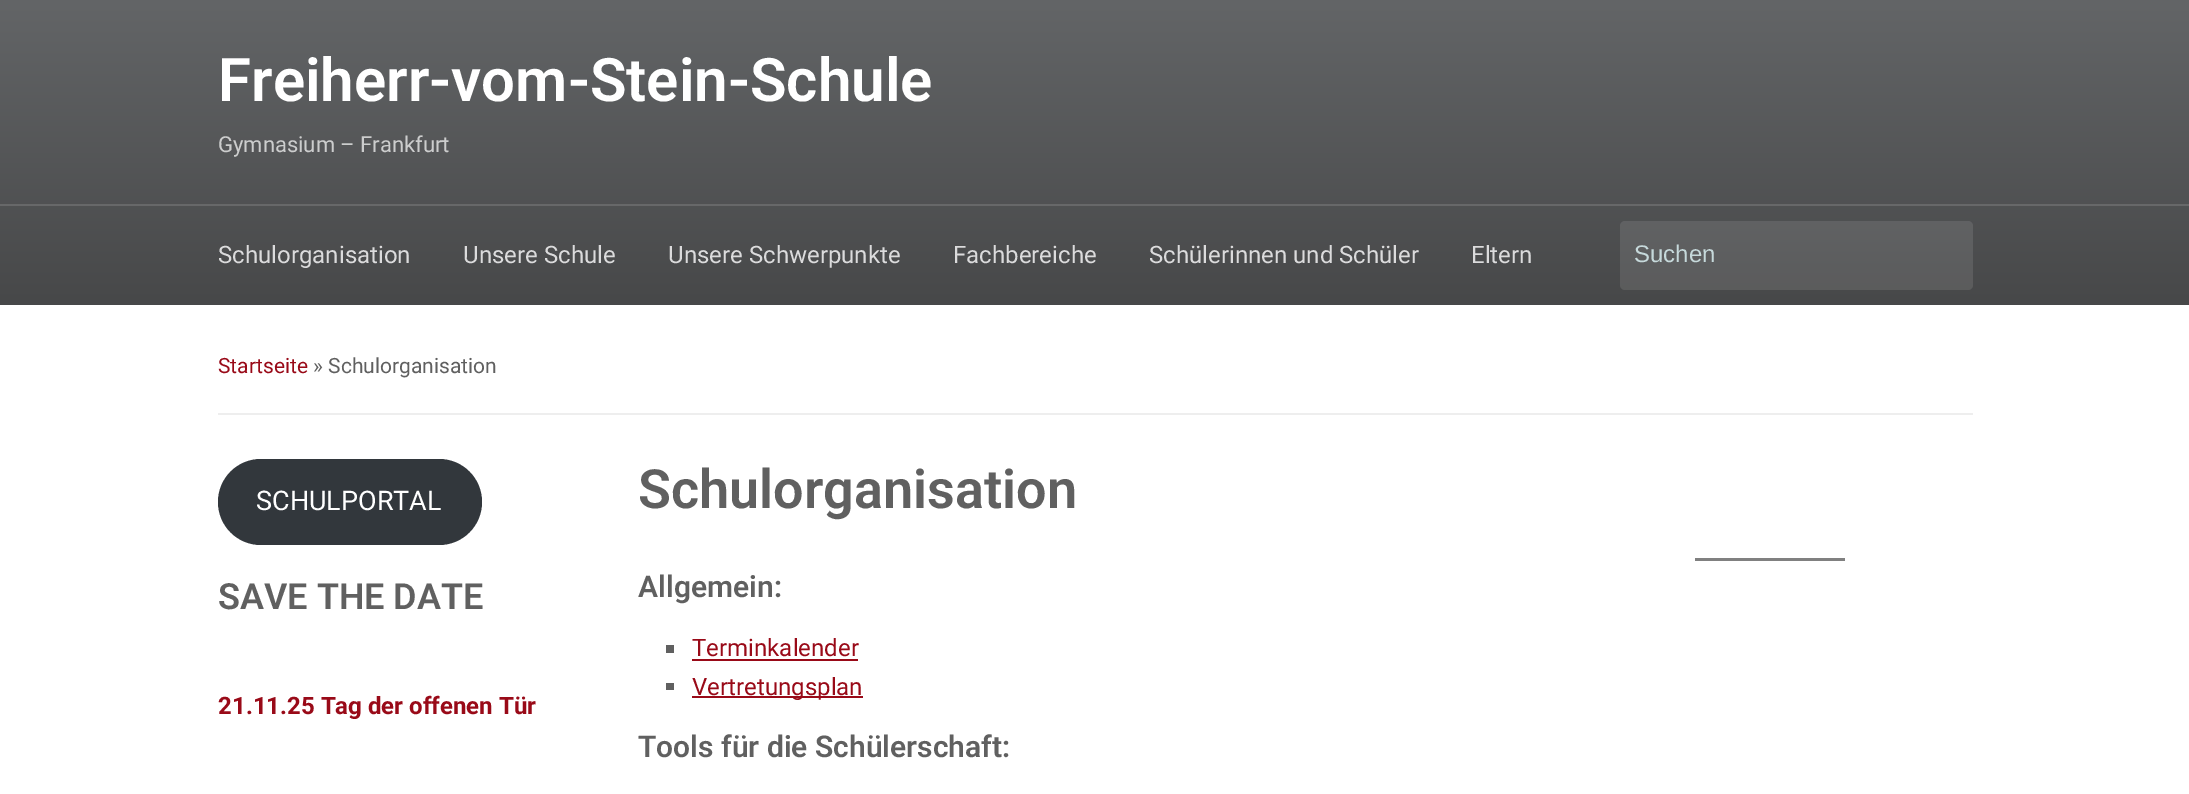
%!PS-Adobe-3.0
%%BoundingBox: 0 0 2189 794
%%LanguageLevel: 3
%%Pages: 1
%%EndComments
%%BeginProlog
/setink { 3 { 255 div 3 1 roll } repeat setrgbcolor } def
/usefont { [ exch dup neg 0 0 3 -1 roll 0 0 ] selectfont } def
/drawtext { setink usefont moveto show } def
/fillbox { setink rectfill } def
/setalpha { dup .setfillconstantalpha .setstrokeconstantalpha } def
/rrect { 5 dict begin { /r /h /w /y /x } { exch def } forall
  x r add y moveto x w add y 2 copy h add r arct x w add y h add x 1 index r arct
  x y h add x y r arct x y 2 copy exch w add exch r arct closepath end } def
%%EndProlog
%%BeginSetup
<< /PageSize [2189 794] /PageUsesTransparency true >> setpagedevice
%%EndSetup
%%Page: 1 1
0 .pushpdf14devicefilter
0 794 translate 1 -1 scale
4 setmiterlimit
0 0 2189 794 255 255 255 fillbox
gsave 0 0 moveto 2189 0 lineto 2189 305 lineto 0 305 lineto closepath clip newpath
<< /ShadingType 2 /ColorSpace /DeviceRGB /Coords [1095 0 1095 305] /Extend [true true] /Function << /FunctionType 2 /Domain [0 1] /C0 [0.388 0.396 0.404] /C1 [0.278 0.282 0.286] /N 1 >> >> shfill grestore
(Freiherr-vom-Stein-Schule) 218 101 /Roboto-SemiBold 60 255 255 255 drawtext
(Gymnasium – Frankfurt) 218 152 /Roboto-Regular 22 204 205 205 drawtext
0 204 2189 2 103 104 105 fillbox
(Schulorganisation) 218 263 /Roboto-Regular 24 219 219 220 drawtext
(Unsere Schule) 463 263 /Roboto-Regular 24 219 219 220 drawtext
(Unsere Schwerpunkte) 668 263 /Roboto-Regular 24 219 219 220 drawtext
(Fachbereiche) 953 263 /Roboto-Regular 24 219 219 220 drawtext
(Schülerinnen und Schüler) 1149 263 /Roboto-Regular 24 219 219 220 drawtext
(Eltern) 1471 263 /Roboto-Regular 24 219 219 220 drawtext
0.1 setalpha
255 255 255 setink
1620 221 353 69 5 rrect fill
1 setalpha
(Suchen) 1634 262 /LiberationSans-Regular 24 198 217 219 drawtext
218 413 1755 2 238 238 238 fillbox
(Startseite) 218 373 /Roboto-Regular 21 153 10 24 drawtext
(» Schulorganisation) 313 373 /Roboto-Regular 21 96 96 96 drawtext
50 55 60 setink
218 459 264 86 43 rrect fill
(SCHULPORTAL) 256 510 /Roboto-Regular 27 255 255 255 drawtext
(SAVE THE DATE) 218 609 /Roboto-SemiBold 36 96 96 96 drawtext
(21.11.25 Tag der offenen Tür) 218 714 /Roboto-Bold 24 153 10 24 drawtext
(Schulorganisation) 638 508 /Roboto-SemiBold 54 96 96 96 drawtext
(Allgemein:) 638 597 /Roboto-SemiBold 30 96 96 96 drawtext
666 645 8 8 96 96 96 fillbox
(Terminkalender) 692 656 /Roboto-Regular 24 153 10 24 drawtext
692 659 166 2 153 10 24 fillbox
666 683 8 7 96 96 96 fillbox
692 696 171 2 153 10 24 fillbox
(Vertretungsplan) 692 695 /Roboto-Regular 24 153 10 24 drawtext
(Tools für die Schülerschaft:) 638 757 /Roboto-SemiBold 30 96 96 96 drawtext
1695 558 150 3 128 128 128 fillbox
.poppdf14devicefilter showpage
%%EOF
